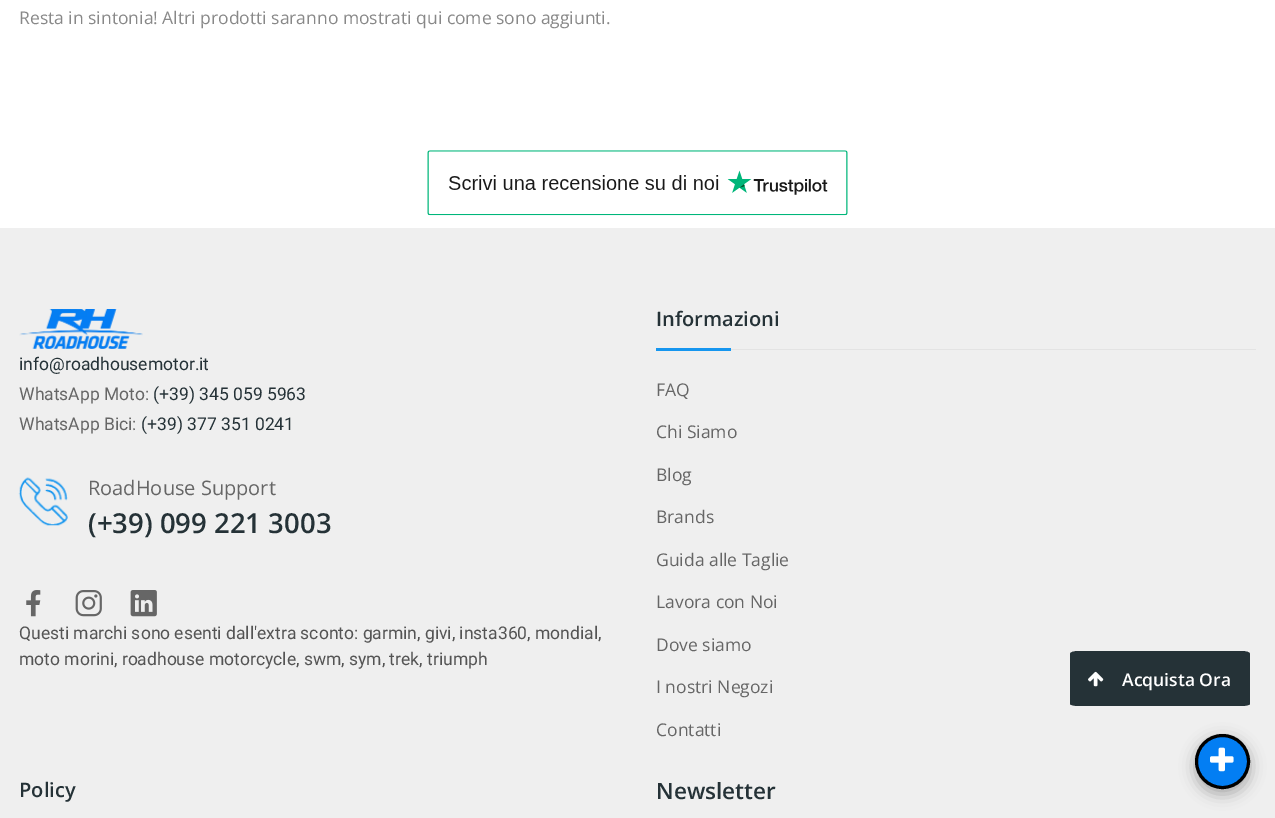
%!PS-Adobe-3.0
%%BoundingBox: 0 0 1275 818
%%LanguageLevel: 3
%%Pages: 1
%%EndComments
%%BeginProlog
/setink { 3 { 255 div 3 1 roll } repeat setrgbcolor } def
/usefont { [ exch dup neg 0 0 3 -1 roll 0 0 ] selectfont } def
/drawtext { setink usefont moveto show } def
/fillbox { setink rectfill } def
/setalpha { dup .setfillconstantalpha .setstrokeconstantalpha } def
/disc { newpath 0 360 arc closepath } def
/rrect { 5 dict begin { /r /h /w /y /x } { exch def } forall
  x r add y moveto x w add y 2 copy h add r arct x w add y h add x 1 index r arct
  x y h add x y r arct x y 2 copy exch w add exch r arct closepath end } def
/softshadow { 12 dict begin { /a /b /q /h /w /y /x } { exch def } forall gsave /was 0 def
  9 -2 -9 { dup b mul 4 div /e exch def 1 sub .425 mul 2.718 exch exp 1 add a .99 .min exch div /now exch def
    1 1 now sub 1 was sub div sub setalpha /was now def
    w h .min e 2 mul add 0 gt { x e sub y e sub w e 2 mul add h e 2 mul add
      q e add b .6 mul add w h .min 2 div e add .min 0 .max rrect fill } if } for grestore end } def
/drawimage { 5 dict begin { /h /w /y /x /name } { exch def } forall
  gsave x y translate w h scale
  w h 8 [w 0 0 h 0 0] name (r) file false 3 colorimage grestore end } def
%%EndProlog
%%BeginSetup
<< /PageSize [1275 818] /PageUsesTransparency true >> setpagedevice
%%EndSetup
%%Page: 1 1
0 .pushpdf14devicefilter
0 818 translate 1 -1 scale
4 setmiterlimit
0 0 1275 818 255 255 255 fillbox
(Resta in sintonia! Altri prodotti saranno mostrati qui come sono aggiunti.) 19 24 /OpenSans-Regular 17.5 136 136 136 drawtext
(assets/img1.rgb) 427 150 421 66 drawimage
0 228 1275 590 239 239 239 fillbox
(assets/img2.rgb) 19 309 124 40 drawimage
(info@roadhousemotor.it) 19 370 /Roboto-Regular 17.5 37 50 55 drawtext
(WhatsApp Moto:) 19 400 /Roboto-Regular 17.5 102 102 102 drawtext
(\(+39\) 345 059 5963) 153 400 /Roboto-Regular 17.5 37 50 55 drawtext
(WhatsApp Bici:) 19 430 /Roboto-Regular 17.5 102 102 102 drawtext
(\(+39\) 377 351 0241) 141 430 /Roboto-Regular 17.5 37 50 55 drawtext
(assets/img3.rgb) 18 477 50 49 drawimage
(RoadHouse Support) 88 495 /OpenSans-Regular 20 102 102 102 drawtext
(\(+39\) 099 221 3003) 88 533 /OpenSans-SemiBold 27.5 37 50 55 drawtext
(assets/img4.rgb) 26 590 15 27 drawimage
(assets/img5.rgb) 75 590 27 27 drawimage
(assets/img6.rgb) 130 590 27 27 drawimage
(Questi marchi sono esenti dall'extra sconto: garmin, givi, insta360, mondial,) 19 639 /Roboto-Regular 17.5 84 84 84 drawtext
(moto morini, roadhouse motorcycle, swm, sym, trek, triumph) 19 665 /Roboto-Regular 17.5 84 84 84 drawtext
731 349 525 1 227 227 227 fillbox
(Informazioni) 656 326 /OpenSans-SemiBold 20 37 50 55 drawtext
656 348 75 3 22 150 239 fillbox
(FAQ) 656 396 /OpenSans-Regular 17.5 102 102 102 drawtext
(Chi Siamo) 656 438 /OpenSans-Regular 17.5 102 102 102 drawtext
(Blog) 656 481 /OpenSans-Regular 17.5 102 102 102 drawtext
(Brands) 656 523 /OpenSans-Regular 17.5 102 102 102 drawtext
(Guida alle Taglie) 656 566 /OpenSans-Regular 17.5 102 102 102 drawtext
(Lavora con Noi) 656 608 /OpenSans-Regular 17.5 102 102 102 drawtext
(Dove siamo) 656 651 /OpenSans-Regular 17.5 102 102 102 drawtext
(I nostri Negozi) 656 693 /OpenSans-Regular 17.5 102 102 102 drawtext
(Contatti) 656 736 /OpenSans-Regular 17.5 102 102 102 drawtext
(Policy) 19 797 /OpenSans-SemiBold 20 37 50 55 drawtext
(Newsletter) 656 799 /OpenSans-SemiBold 22.5 37 50 55 drawtext
0 0 0 setink
1195 739 55 55 27.5 7.5 0.3 softshadow
3 126 243 setink
1222.5 761.5 26 disc gsave fill grestore
0 0 0 setink
3 setlinewidth
stroke
(assets/img7.rgb) 1210 747 24 25 drawimage
37 50 55 setink
1079 651 moveto 1241 651 lineto 1246 651 1250 652 1250 654 curveto 1250 704 lineto 1250 705 1246 706 1241 706 curveto 1079 706 lineto 1074 706 1070 705 1070 704 curveto 1070 654 lineto 1070 652 1074 651 1079 651 curveto closepath fill
(assets/img8.rgb) 1088 671 16 16 drawimage
(Acquista Ora) 1122 686 /OpenSans-SemiBold 17.5 255 255 255 drawtext
.poppdf14devicefilter showpage
%%EOF
